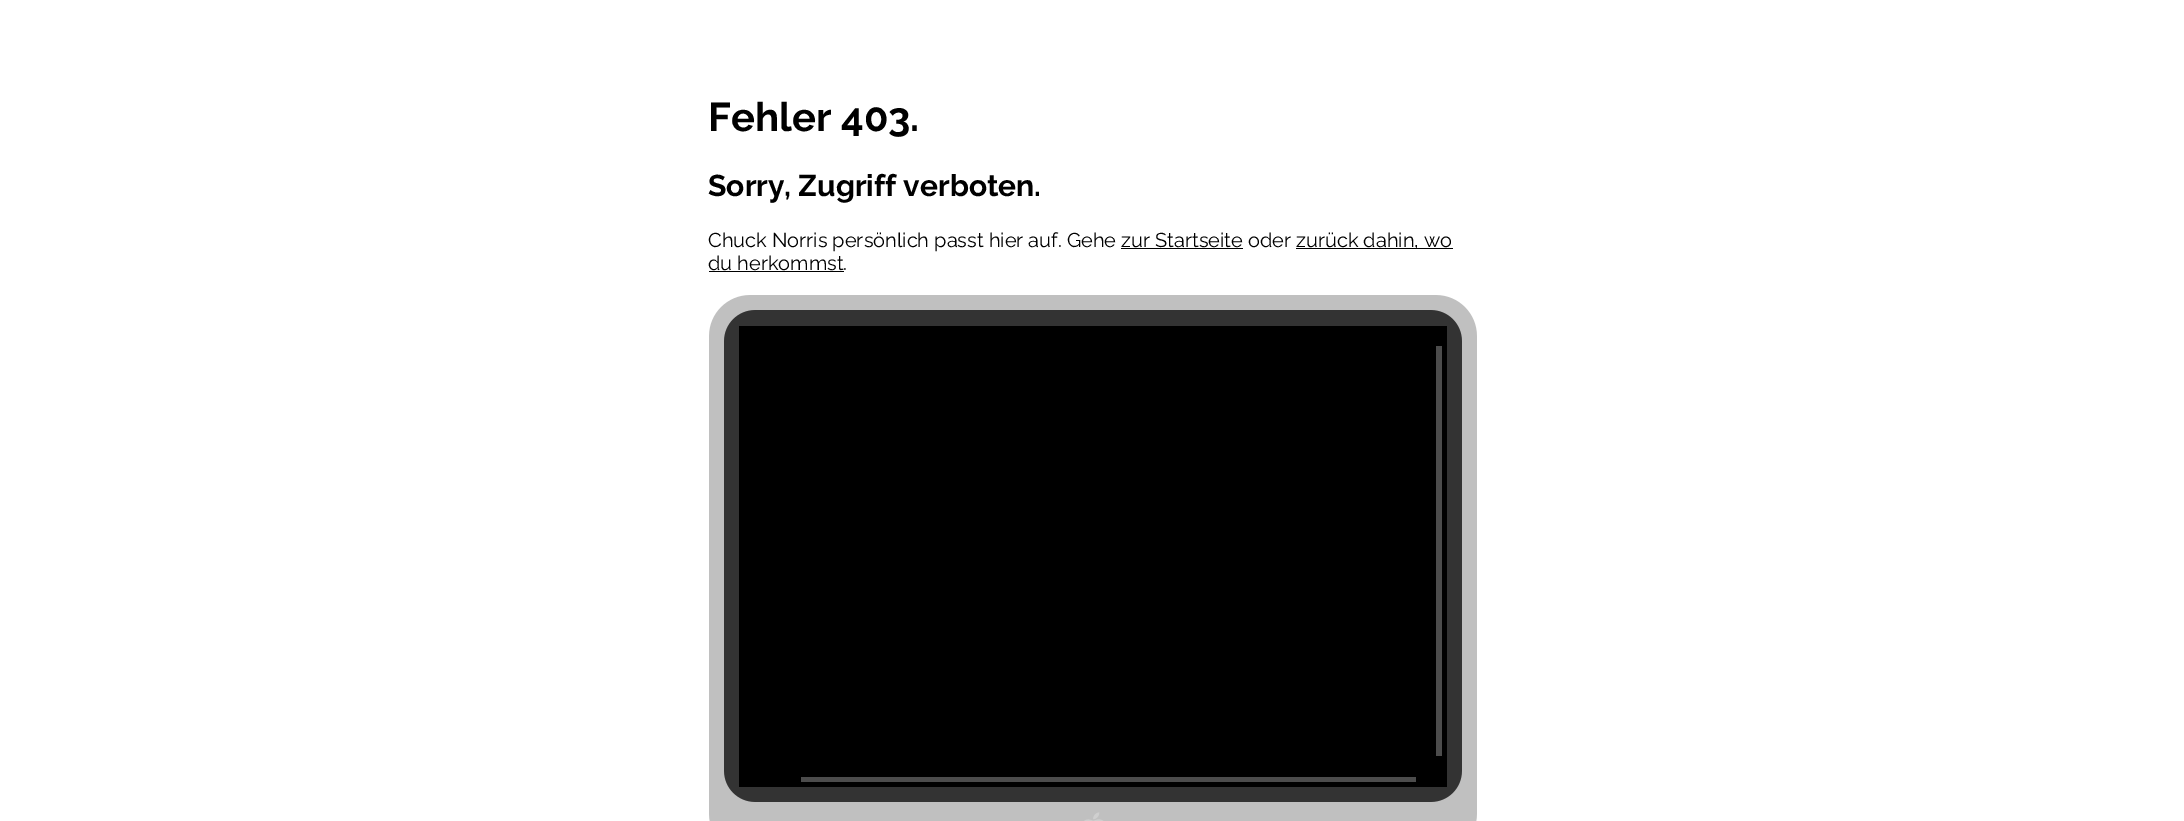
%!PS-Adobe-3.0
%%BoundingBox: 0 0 2184 821
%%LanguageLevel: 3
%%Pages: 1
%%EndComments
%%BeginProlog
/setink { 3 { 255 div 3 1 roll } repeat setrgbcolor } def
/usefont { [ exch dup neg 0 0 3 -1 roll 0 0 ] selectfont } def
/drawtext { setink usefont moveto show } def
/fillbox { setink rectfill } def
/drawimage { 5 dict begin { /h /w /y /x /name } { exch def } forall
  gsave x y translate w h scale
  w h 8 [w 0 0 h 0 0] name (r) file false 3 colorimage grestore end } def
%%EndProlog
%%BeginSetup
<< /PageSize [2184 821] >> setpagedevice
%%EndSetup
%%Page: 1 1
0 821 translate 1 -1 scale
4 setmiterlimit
0 0 2184 821 255 255 255 fillbox
(Fehler 403.) 708 131 /Raleway-Bold 40 0 0 0 drawtext
(Sorry, Zugriff verboten.) 708 196 /Raleway-Bold 30 0 0 0 drawtext
(Chuck Norris persönlich passt hier auf. Gehe zur Startseite oder) 708 247 /Raleway-Regular 20 0 0 0 drawtext
1296 248 157 1 0 0 0 fillbox
(zurück dahin, wo) 1296 247 /Raleway-Regular 20 0 0 0 drawtext
1121 248 122 1 0 0 0 fillbox
(du herkommst.) 708 270 /Raleway-Regular 20 0 0 0 drawtext
709 271 135 1 0 0 0 fillbox
(assets/img1.rgb) 709 295 768 526 drawimage
showpage
%%EOF
